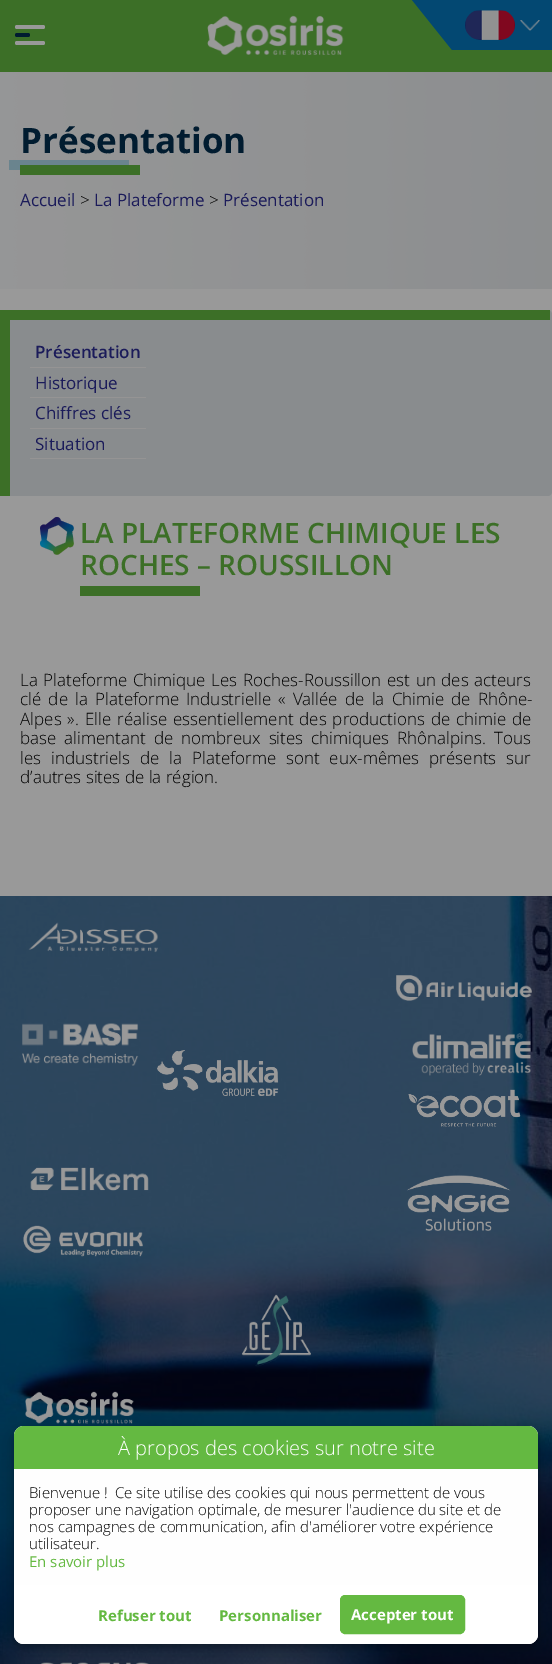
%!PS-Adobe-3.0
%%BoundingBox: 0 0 552 1664
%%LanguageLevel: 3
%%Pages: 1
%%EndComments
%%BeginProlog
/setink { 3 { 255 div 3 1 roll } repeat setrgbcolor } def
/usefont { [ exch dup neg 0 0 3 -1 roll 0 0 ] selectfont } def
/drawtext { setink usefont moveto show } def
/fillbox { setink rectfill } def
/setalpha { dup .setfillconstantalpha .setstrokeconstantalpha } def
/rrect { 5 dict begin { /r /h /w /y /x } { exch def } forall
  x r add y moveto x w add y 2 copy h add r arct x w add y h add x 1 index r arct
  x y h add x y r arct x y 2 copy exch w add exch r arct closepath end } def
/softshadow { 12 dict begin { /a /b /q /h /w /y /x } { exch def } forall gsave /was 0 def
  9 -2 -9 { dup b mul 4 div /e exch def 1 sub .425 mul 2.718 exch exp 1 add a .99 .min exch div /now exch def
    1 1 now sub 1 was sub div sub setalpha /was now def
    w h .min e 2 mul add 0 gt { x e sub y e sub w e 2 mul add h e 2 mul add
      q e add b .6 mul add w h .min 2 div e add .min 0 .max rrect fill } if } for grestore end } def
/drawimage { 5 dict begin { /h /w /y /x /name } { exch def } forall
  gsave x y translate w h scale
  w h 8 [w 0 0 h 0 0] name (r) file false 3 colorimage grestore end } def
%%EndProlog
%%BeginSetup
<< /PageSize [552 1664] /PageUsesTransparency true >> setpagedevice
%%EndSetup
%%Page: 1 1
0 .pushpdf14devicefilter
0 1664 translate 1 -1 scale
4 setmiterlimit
0 0 552 1664 153 153 153 fillbox
0 0 552 72 60 111 39 fillbox
(assets/img1.rgb) 207 15 137 40 drawimage
452 0 100 50 3 72 114 fillbox
412 0 moveto 452 0 lineto 452 50 lineto closepath fill
(assets/img2.rgb) 465 10 50 30 drawimage
(assets/img3.rgb) 520 20 20 11 drawimage
153 153 153 setink
15 25 30 4 2 rrect fill
0 28 48 setink
15 33 15 4 2 rrect fill
153 153 153 setink
15 41 30 4 2 rrect fill
(assets/img4.rgb) 0 72 552 217 drawimage
(Présentation) 20 153 /OpenSans-Bold 35 1 28 48 drawtext
9 160 120 10 106 132 142 fillbox
20 165 120 10 60 111 39 fillbox
(Accueil) 20 206 /OpenSans-Regular 17 27 27 90 drawtext
(>) 80 206 /OpenSans-Light 17 0 0 0 drawtext
(La Plateforme) 94 206 /OpenSans-Regular 17 27 27 90 drawtext
(>) 209 206 /OpenSans-Light 17 0 0 0 drawtext
(Présentation) 223 206 /OpenSans-Regular 17 27 27 90 drawtext
137 140 142 setink
0 310 moveto 548 310 lineto 550 310 552 312 552 314 curveto 552 492 lineto 552 494 550 496 548 496 curveto 0 496 lineto closepath fill
10 310 540 10 60 111 39 fillbox
0 310 10 186 60 111 39 fillbox
30 367 116 1 149 148 148 fillbox
(Présentation) 35 358 /OpenSans-SemiBold 17 27 27 90 drawtext
30 397 116 1 149 148 148 fillbox
(Historique) 35 389 /OpenSans-Regular 17 27 27 90 drawtext
30 428 116 1 149 148 148 fillbox
(Chiffres clés) 35 419 /OpenSans-Regular 17 27 27 90 drawtext
30 458 116 1 149 148 148 fillbox
(Situation) 35 450 /OpenSans-Regular 17 27 27 90 drawtext
(assets/img5.rgb) 40 516 34 39 drawimage
(LA PLATEFORME CHIMIQUE LES) 80 543 /OpenSans-SemiBold 28 60 111 39 drawtext
(ROCHES – ROUSSILLON) 80 575 /OpenSans-SemiBold 28 60 111 39 drawtext
80 586 120 10 60 111 39 fillbox
/OpenSans-Light 17 usefont
0 0 0 setink
20 686 moveto 1.25 0 32 (La Plateforme Chimique Les Roches-Roussillon est un des acteurs) widthshow
20 705 moveto 2.75 0 32 (clé de la Plateforme Industrielle « Vallée de la Chimie de Rhône-) widthshow
20 725 moveto 1.5 0 32 (Alpes ». Elle réalise essentiellement des productions de chimie de) widthshow
20 744 moveto 3.5 0 32 (base alimentant de nombreux sites chimiques Rhônalpins. Tous) widthshow
20 764 moveto 5.5 0 32 (les industriels de la Plateforme sont eux-mêmes présents sur) widthshow
(d’autres sites de la région.) 20 783 /OpenSans-Light 17 0 0 0 drawtext
(assets/img6.rgb) 0 896 552 768 drawimage
(assets/img7.rgb) 28 922 130 31 drawimage
(assets/img8.rgb) 396 975 136 26 drawimage
(assets/img9.rgb) 22 1023 117 43 drawimage
(assets/img10.rgb) 157 1050 122 46 drawimage
(assets/img11.rgb) 412 1033 119 43 drawimage
(assets/img12.rgb) 408 1089 113 38 drawimage
(assets/img13.rgb) 30 1167 119 24 drawimage
(assets/img14.rgb) 407 1175 104 56 drawimage
(assets/img15.rgb) 23 1225 120 32 drawimage
(assets/img16.rgb) 241 1294 70 73 drawimage
(assets/img17.rgb) 25 1391 109 33 drawimage
(assets/img18.rgb) 40 1662 109 2 drawimage
14 1432 524 218 10 10 0.19 softshadow
14 1430 524 218 10 4 0.2 softshadow
254 254 254 setink
14 1426 524 218 10 rrect fill
100 185 65 setink
24 1426 moveto 528 1426 lineto 533.5 1426 538 1430.5 538 1436 curveto 538 1469 lineto 14 1469 lineto 14 1436 lineto 14 1430.5 18.5 1426 24 1426 curveto closepath fill
(À propos des cookies sur notre site) 118 1455 /OpenSans-Light 20 255 255 255 drawtext
(Bienvenue !) 29 1498 /OpenSans-Light 15 0 0 0 drawtext
(Ce site utilise des cookies qui nous permettent de vous) 115 1498 /OpenSans-Light 15 0 0 0 drawtext
(proposer une navigation optimale, de mesurer l'audience du site et de) 29 1515 /OpenSans-Light 15 0 0 0 drawtext
(nos campagnes de communication, afin d'améliorer votre expérience) 29 1532 /OpenSans-Light 15 0 0 0 drawtext
(utilisateur.) 29 1549 /OpenSans-Light 15 0 0 0 drawtext
(En savoir plus) 29 1567 /OpenSans-Regular 15 100 185 65 drawtext
255 255 255 setink
14 1585 moveto 538 1585 lineto 538 1634 lineto 538 1639.5 533.5 1644 528 1644 curveto 24 1644 lineto 18.5 1644 14 1639.5 14 1634 curveto closepath fill
(Refuser tout) 98 1621 /OpenSans-Bold 15 100 185 65 drawtext
(Personnaliser) 219 1621 /OpenSans-Bold 15 100 185 65 drawtext
340.5 1595.5 124 38 4.5 rrect gsave fill grestore
stroke
(Accepter tout) 351 1620 /OpenSans-Bold 15 255 255 255 drawtext
.poppdf14devicefilter showpage
%%EOF
